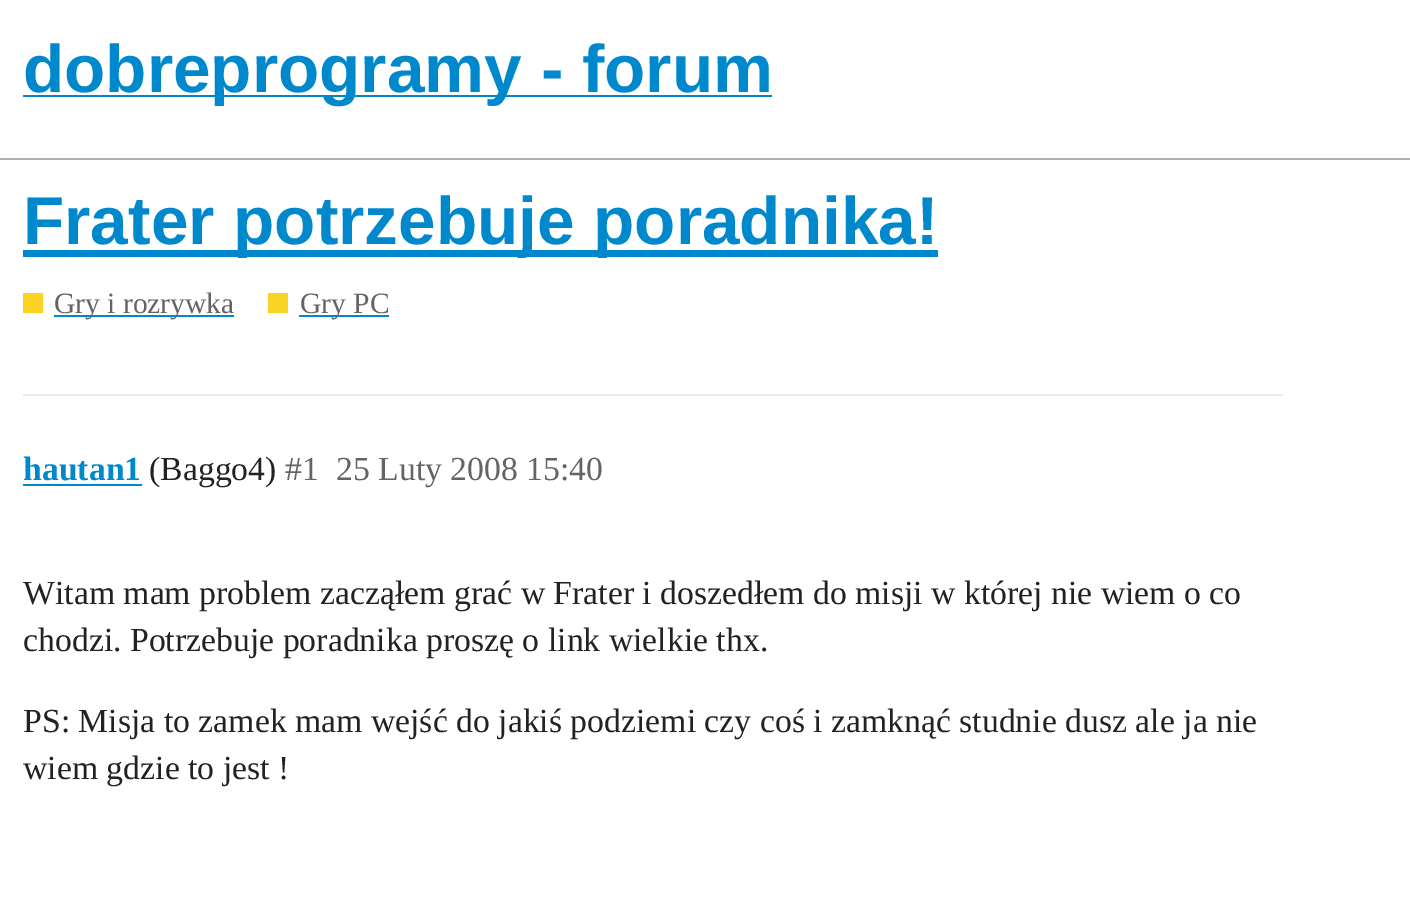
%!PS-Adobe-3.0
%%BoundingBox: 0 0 1410 915
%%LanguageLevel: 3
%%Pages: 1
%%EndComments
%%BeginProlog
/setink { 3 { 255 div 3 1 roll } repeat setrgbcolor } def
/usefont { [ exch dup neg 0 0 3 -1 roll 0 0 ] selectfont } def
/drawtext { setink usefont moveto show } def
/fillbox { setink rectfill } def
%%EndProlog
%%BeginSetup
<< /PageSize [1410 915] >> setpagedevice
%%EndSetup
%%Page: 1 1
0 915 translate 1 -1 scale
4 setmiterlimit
0 0 1410 915 255 255 255 fillbox
0 158 1410 2 175 175 175 fillbox
23 95 749 2 0 136 204 fillbox
(dobreprogramy - forum) 23 92 /LiberationSans-Bold 67.5 0 136 204 drawtext
23 250 915 7 0 136 204 fillbox
(Frater potrzebuje poradnika!) 23 244 /LiberationSans-Bold 67.5 0 136 204 drawtext
23 293 20 20 249 212 35 fillbox
54 315 180 2 0 136 204 fillbox
(Gry i rozrywka) 54 313 /LiberationSerif-Regular 29.5 100 100 100 drawtext
268 293 20 20 249 212 35 fillbox
299 315 90 2 0 136 204 fillbox
(Gry PC) 300 313 /LiberationSerif-Regular 29.5 100 100 100 drawtext
23 394 1260 2 233 233 233 fillbox
(hautan1) 23 480 /LiberationSerif-Bold 33.75 0 136 204 drawtext
23 484 119 2 0 136 204 fillbox
(\(Baggo4\)) 149 480 /LiberationSerif-Regular 33.75 34 34 34 drawtext
(#1) 285 480 /LiberationSerif-Regular 33.75 100 100 100 drawtext
(25 Luty 2008 15:40) 336 480 /LiberationSerif-Regular 33.75 100 100 100 drawtext
(Witam mam problem zacząłem grać w Frater i doszedłem do misji w której nie wiem o co) 23 604 /LiberationSerif-Regular 33.75 34 34 34 drawtext
(chodzi. Potrzebuje poradnika proszę o link wielkie thx.) 23 651 /LiberationSerif-Regular 33.75 34 34 34 drawtext
(PS: Misja to zamek mam wejść do jakiś podziemi czy coś i zamknąć studnie dusz ale ja nie) 23 732 /LiberationSerif-Regular 33.75 34 34 34 drawtext
(wiem gdzie to jest !) 23 779 /LiberationSerif-Regular 33.75 34 34 34 drawtext
showpage
%%EOF
